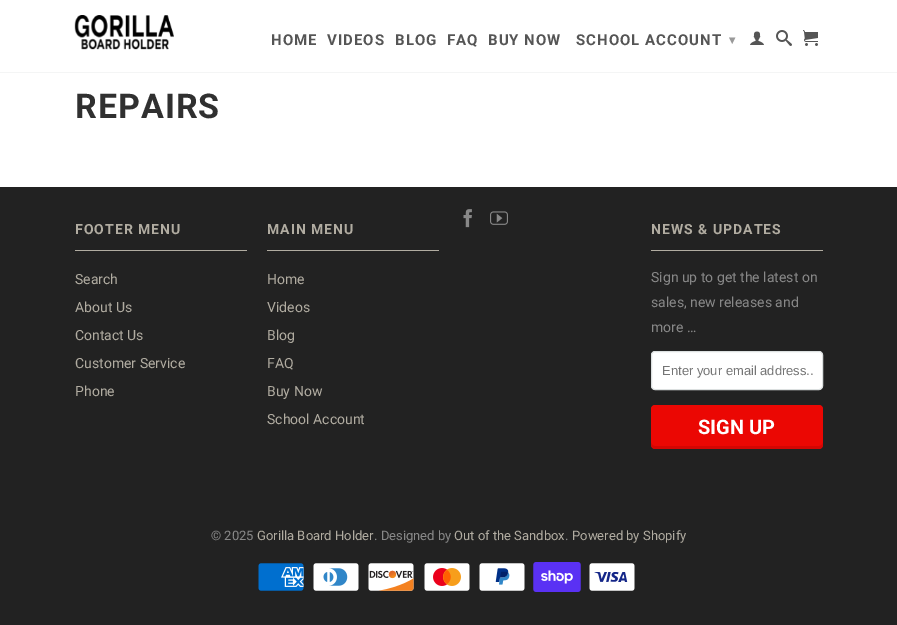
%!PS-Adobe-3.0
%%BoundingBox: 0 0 897 625
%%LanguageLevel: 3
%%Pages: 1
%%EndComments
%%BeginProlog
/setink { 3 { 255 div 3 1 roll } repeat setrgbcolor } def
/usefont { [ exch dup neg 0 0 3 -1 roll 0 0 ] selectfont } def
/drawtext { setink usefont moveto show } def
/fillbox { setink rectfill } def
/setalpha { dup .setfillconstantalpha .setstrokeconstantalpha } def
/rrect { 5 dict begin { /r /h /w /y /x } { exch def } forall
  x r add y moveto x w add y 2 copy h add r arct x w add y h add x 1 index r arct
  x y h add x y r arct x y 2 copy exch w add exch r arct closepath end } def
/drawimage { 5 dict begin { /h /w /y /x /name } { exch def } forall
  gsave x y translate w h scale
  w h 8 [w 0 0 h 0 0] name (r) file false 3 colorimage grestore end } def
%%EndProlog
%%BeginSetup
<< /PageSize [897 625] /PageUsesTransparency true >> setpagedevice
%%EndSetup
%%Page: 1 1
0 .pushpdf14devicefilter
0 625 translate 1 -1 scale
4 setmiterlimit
0 0 897 625 255 255 255 fillbox
0 72 897 1 244 245 245 fillbox
(assets/img1.rgb) 74 15 100 35 drawimage
/Roboto-Bold 15 usefont
85 85 85 setink
271 45 moveto 1 0 (HOME) ashow
327 45 moveto 1 0 (VIDEOS) ashow
395 45 moveto 1 0 (BLOG) ashow
447 45 moveto 1 0 (FAQ) ashow
488 45 moveto 1 0 (BUY NOW) ashow
576 45 moveto 1 0 (SCHOOL ACCOUNT) ashow
/DejaVuSans-Bold 12 usefont
153 153 153 setink
729 44 moveto 1 0 (▾) ashow
(assets/img2.rgb) 750 31 14 14 drawimage
(assets/img3.rgb) 776 30 16 16 drawimage
(assets/img4.rgb) 803 30 15 16 drawimage
/Roboto-Bold 34 usefont
48 48 48 setink
75 118 moveto 1 0 (REPAIRS) ashow
0 187 897 438 34 34 34 fillbox
(assets/img5.rgb) 463 209 9 19 drawimage
(assets/img6.rgb) 490 211 18 14 drawimage
75 250 172 1 177 172 161 fillbox
/Roboto-Bold 14 usefont
75 234 moveto 1 0 (FOOTER MENU) ashow
(Search) 75 284 /Roboto-Regular 14 177 172 161 drawtext
(About Us) 75 312 /Roboto-Regular 14 177 172 161 drawtext
(Contact Us) 75 340 /Roboto-Regular 14 177 172 161 drawtext
(Customer Service) 75 368 /Roboto-Regular 14 177 172 161 drawtext
(Phone) 75 396 /Roboto-Regular 14 177 172 161 drawtext
267 250 172 1 177 172 161 fillbox
/Roboto-Bold 14 usefont
267 234 moveto 1 0 (MAIN MENU) ashow
(Home) 267 284 /Roboto-Regular 14 177 172 161 drawtext
(Videos) 267 312 /Roboto-Regular 14 177 172 161 drawtext
(Blog) 267 340 /Roboto-Regular 14 177 172 161 drawtext
(FAQ) 267 368 /Roboto-Regular 14 177 172 161 drawtext
(Buy Now) 267 396 /Roboto-Regular 14 177 172 161 drawtext
(School Account) 267 424 /Roboto-Regular 14 177 172 161 drawtext
651 250 172 1 177 172 161 fillbox
/Roboto-Bold 14 usefont
651 234 moveto 1 0 (NEWS & UPDATES) ashow
(Sign up to get the latest on) 651 282 /Roboto-Regular 14 136 136 136 drawtext
(sales, new releases and) 651 307 /Roboto-Regular 14 136 136 136 drawtext
(more …) 651 332 /Roboto-Regular 14 136 136 136 drawtext
255 255 255 setink
651.5 351.5 171 38 3.5 rrect gsave fill grestore
220 224 224 setink
stroke
(Enter your email address..) 662 375 /LiberationSans-Regular 13 117 117 117 drawtext
235 7 3 setink
651 405 172 44 4 rrect fill
0.1 setalpha
0 0 0 setink
651 442 moveto 651 445 lineto 651 447 653 449 655 449 curveto 819 449 lineto 821 449 823 447 823 445 curveto 823 442 lineto 823 444 821 446 819 446 curveto 655 446 lineto 653 446 651 444 651 442 curveto closepath fill
1 setalpha
(SIGN UP) 698 434 /Roboto-Bold 20 255 255 255 drawtext
(© 2025) 211 540 /Roboto-Regular 13 136 136 136 drawtext
(Gorilla Board Holder) 257 540 /Roboto-Regular 13 177 172 161 drawtext
(. Designed by) 374 540 /Roboto-Regular 13 136 136 136 drawtext
(Out of the Sandbox) 454 540 /Roboto-Regular 13 177 172 161 drawtext
(.) 565 540 /Roboto-Regular 13 136 136 136 drawtext
(Powered by Shopify) 572 540 /Roboto-Regular 13 177 172 161 drawtext
(assets/img7.rgb) 258 563 46 28 drawimage
(assets/img8.rgb) 313 563 46 28 drawimage
(assets/img9.rgb) 368 563 46 28 drawimage
(assets/img10.rgb) 424 563 46 28 drawimage
(assets/img11.rgb) 479 563 46 28 drawimage
(assets/img12.rgb) 533 562 48 30 drawimage
(assets/img13.rgb) 589 563 46 28 drawimage
.poppdf14devicefilter showpage
%%EOF
